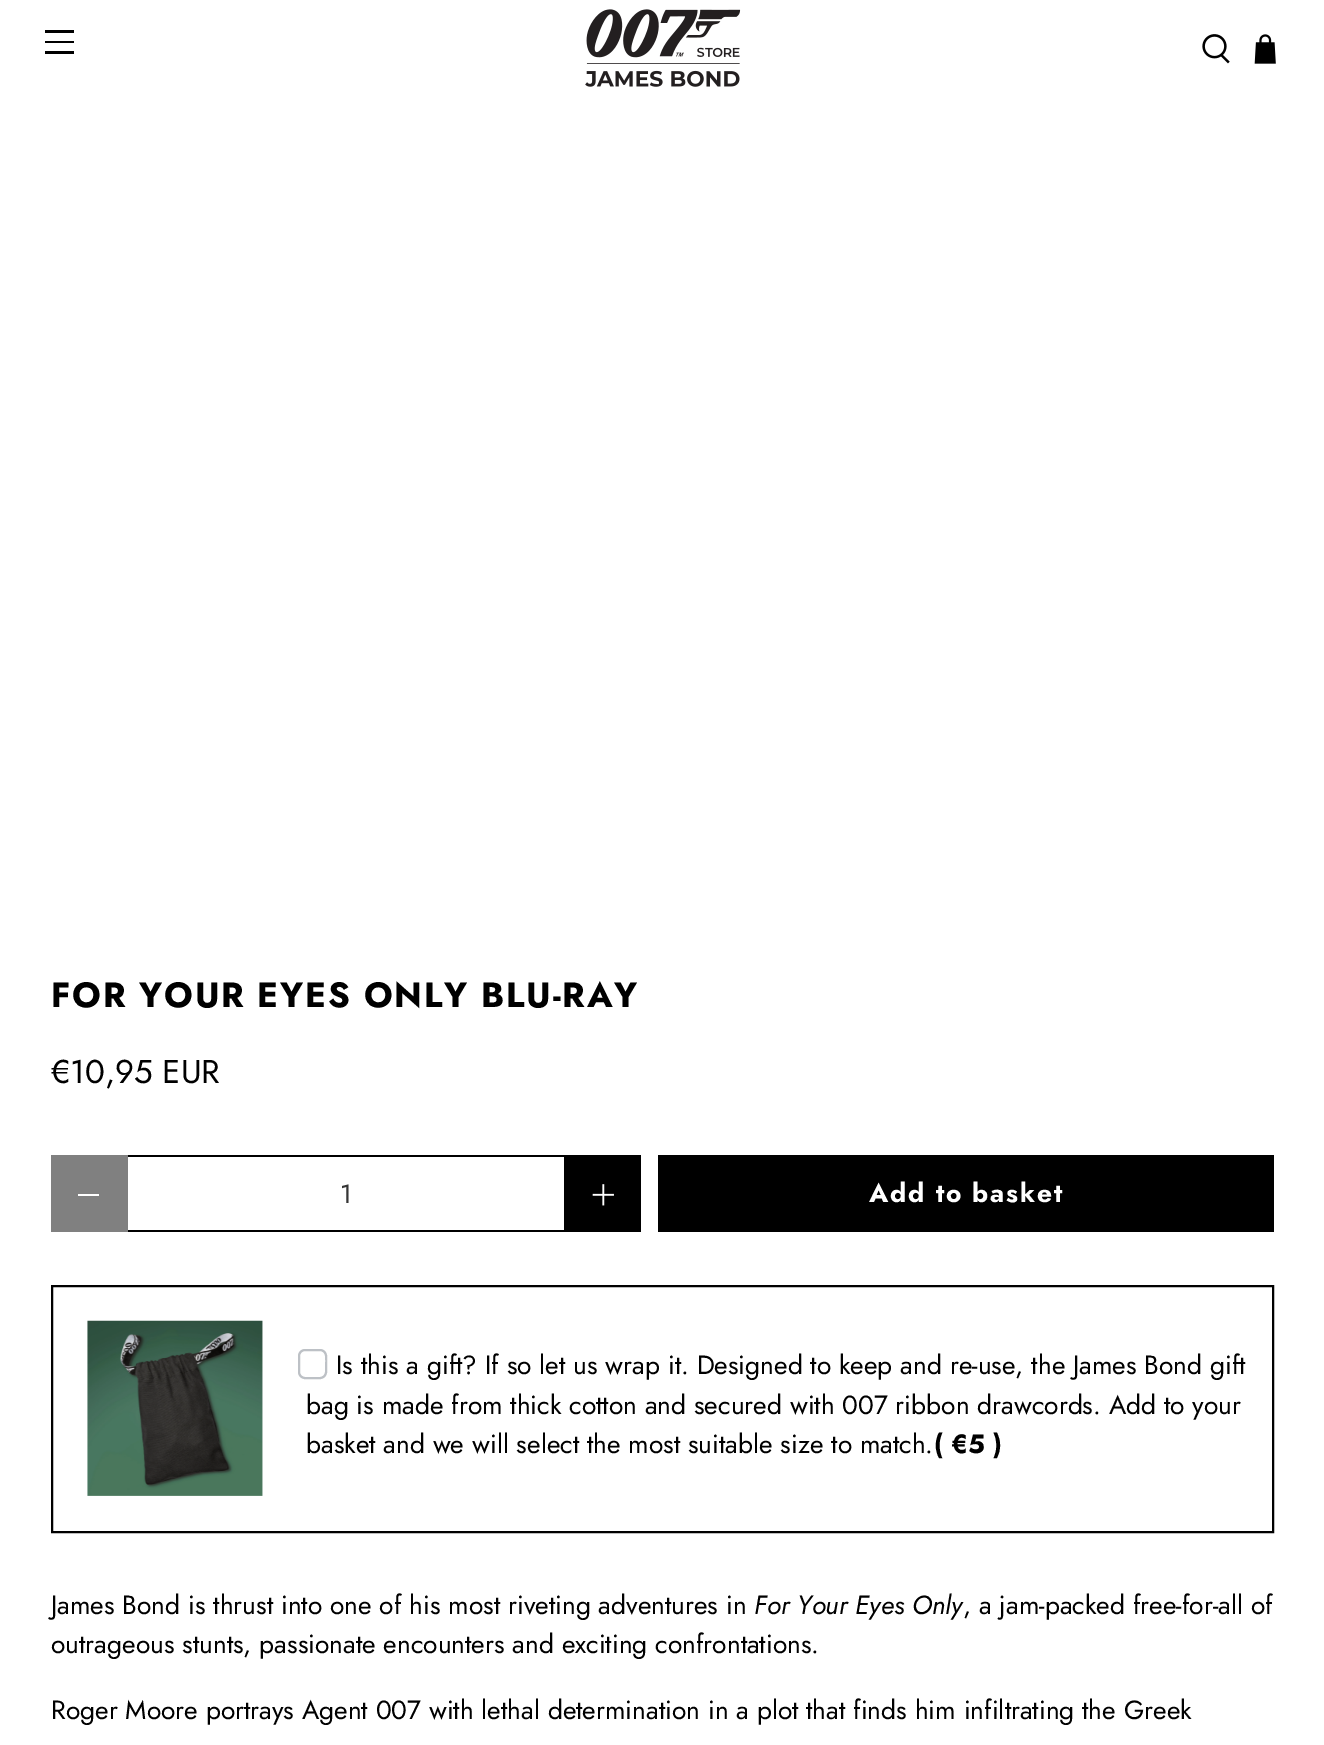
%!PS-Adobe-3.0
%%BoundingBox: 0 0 1324 1745
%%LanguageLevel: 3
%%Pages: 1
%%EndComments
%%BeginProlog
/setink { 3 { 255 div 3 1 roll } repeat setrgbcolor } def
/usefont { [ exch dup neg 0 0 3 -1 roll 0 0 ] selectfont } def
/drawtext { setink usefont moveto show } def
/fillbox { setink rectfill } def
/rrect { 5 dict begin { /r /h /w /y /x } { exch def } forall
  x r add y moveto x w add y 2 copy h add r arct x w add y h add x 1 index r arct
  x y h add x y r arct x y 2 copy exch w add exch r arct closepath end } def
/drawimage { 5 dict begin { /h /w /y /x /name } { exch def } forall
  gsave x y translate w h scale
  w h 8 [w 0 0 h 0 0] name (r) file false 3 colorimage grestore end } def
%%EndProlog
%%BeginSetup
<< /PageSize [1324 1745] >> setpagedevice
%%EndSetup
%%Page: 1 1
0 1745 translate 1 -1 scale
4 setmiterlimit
0 0 1324 1745 255 255 255 fillbox
45 30 29 3 0 0 0 fillbox
45 41 29 2 0 0 0 fillbox
45 51 29 3 0 0 0 fillbox
(assets/img1.rgb) 585 9 156 78 drawimage
(assets/img2.rgb) 1202 34 28 30 drawimage
(assets/img3.rgb) 1254 34 22 30 drawimage
/Jost-Bold 35 usefont
51 1007 moveto 1.75 0 (FOR YOUR EYES ONLY BLU-RAY) ashow
(€10,95 EUR) 51 1083 /Jost-Regular 33 0 0 0 drawtext
51 1155 77 77 128 128 128 fillbox
78 1194 21 2 255 255 255 fillbox
128 1155 436 2 0 0 0 fillbox
128 1230 436 2 0 0 0 fillbox
(1) 340 1203 /Jost-Regular 26.25 54 54 54 drawtext
564 1155 77 77 0 0 0 fillbox
(assets/img4.rgb) 592 1184 22 22 drawimage
658 1155 616 77 0 0 0 fillbox
/Jost-Bold 26.25 usefont
255 255 255 setink
869 1202 moveto 1.75 0 (Add to basket) ashow
0 0 0 setink
2 setlinewidth
52 1286 1221 246 rectstroke
(assets/img5.rgb) 87 1320 176 176 drawimage
189 193 198 setink
299 1350 27 28 6 rrect stroke
255 255 255 setink
323 1358.5 moveto 325.5 1361 lineto 312 1374.5 lineto 309.5 1372 lineto closepath fill
(Is this a gift? If so let us wrap it. Designed to keep and re-use, the James Bond gift) 336 1374 /Jost-Regular 26.25 0 0 0 drawtext
(bag is made from thick cotton and secured with 007 ribbon drawcords. Add to your) 306 1414 /Jost-Regular 26.25 0 0 0 drawtext
(basket and we will select the most suitable size to match.) 306 1453 /Jost-Regular 26.25 0 0 0 drawtext
(\( €5 \)) 934 1453 /Jost-Bold 26.25 0 0 0 drawtext
(James Bond is thrust into one of his most riveting adventures in) 51 1614 /Jost-Regular 26.25 0 0 0 drawtext
(For Your Eyes Only) 754 1614 /Jost-Italic 26.25 0 0 0 drawtext
(, a jam-packed free-for-all of) 963 1614 /Jost-Regular 26.25 0 0 0 drawtext
(outrageous stunts, passionate encounters and exciting confrontations.) 51 1653 /Jost-Regular 26.25 0 0 0 drawtext
(Roger Moore portrays Agent 007 with lethal determination in a plot that finds him infiltrating the Greek) 51 1719 /Jost-Regular 26.25 0 0 0 drawtext
showpage
%%EOF
